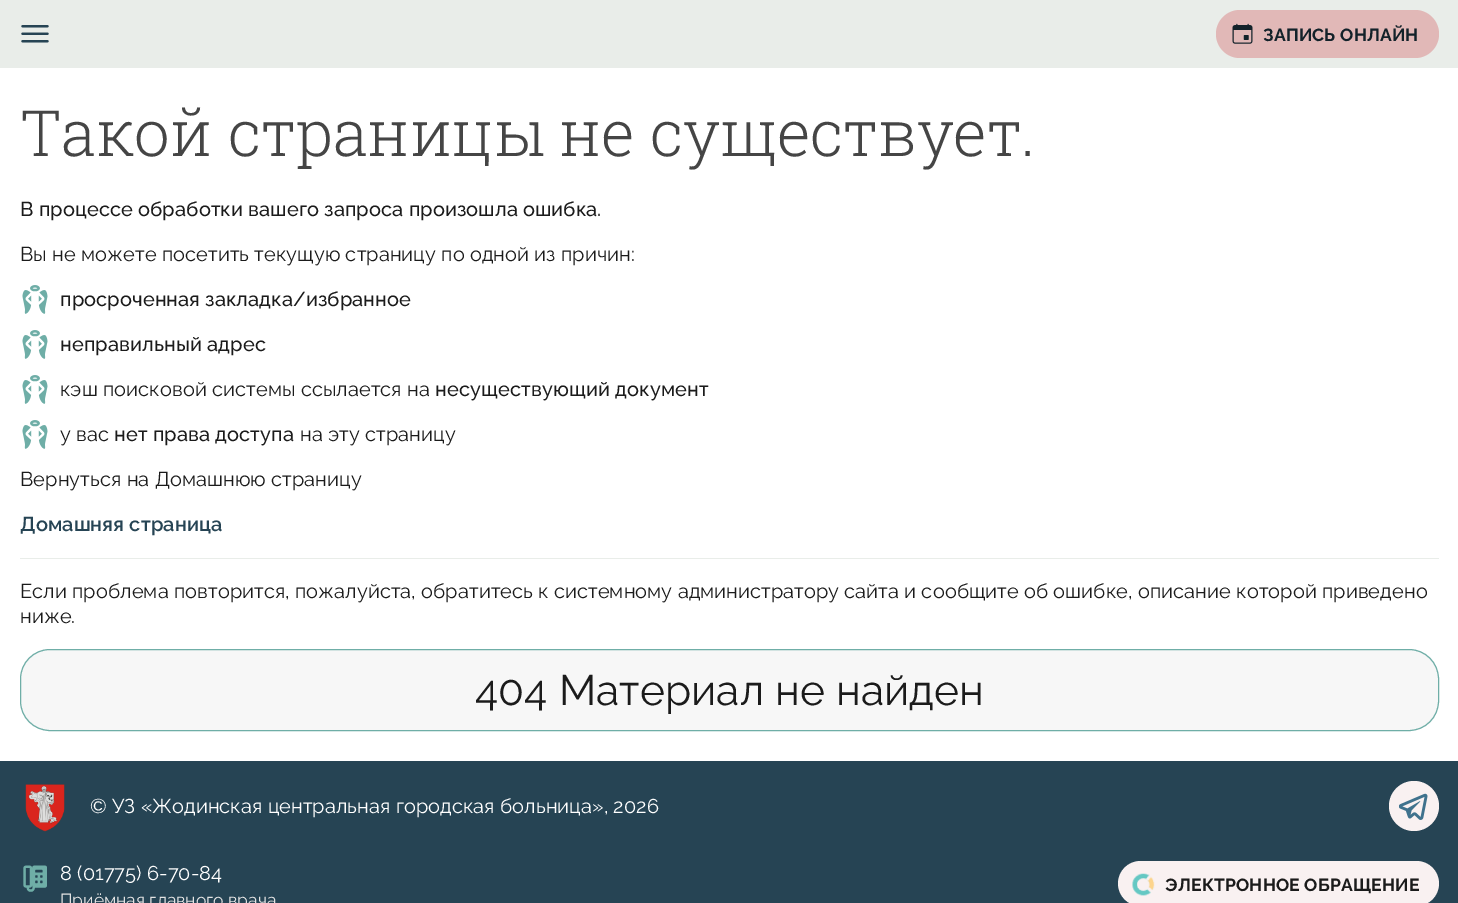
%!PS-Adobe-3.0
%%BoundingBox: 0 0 1458 903
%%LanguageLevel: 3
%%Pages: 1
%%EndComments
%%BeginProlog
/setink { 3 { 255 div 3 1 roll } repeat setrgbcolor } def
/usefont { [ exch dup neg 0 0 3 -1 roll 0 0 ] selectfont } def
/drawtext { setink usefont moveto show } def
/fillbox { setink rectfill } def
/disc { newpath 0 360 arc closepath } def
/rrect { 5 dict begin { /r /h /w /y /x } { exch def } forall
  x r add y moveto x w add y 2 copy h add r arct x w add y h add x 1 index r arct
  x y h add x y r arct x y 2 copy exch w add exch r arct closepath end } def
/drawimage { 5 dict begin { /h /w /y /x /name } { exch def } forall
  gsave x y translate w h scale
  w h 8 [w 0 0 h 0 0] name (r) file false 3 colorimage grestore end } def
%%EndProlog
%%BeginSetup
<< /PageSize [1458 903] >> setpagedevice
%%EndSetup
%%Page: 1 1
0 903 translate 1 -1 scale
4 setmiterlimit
0 0 1458 903 255 255 255 fillbox
0 0 1458 68 233 237 233 fillbox
(assets/img1.rgb) 21 25 28 18 drawimage
225 184 183 setink
1216 10 223 48 24 rrect fill
(assets/img2.rgb) 1232 23 21 21 drawimage
/Raleway-Bold 17.5 usefont
19 34 42 setink
1263 41 moveto 0.2 0 (ЗАПИСЬ ОНЛАЙН) ashow
/RobotoSlab-Light 63.75 usefont
69 69 69 setink
20 156 moveto -0.3 0 (Такой страницы не существует.) ashow
/Raleway-Medium 20 usefont
27 27 27 setink
20 216 moveto 0.1 0 (В процессе обработки вашего запроса произошла ошибка.) ashow
/Raleway-Regular 20 usefont
20 261 moveto 0.1 0 (Вы не можете посетить текущую страницу по одной из причин:) ashow
(assets/img3.rgb) 22 285 26 29 drawimage
/Raleway-Medium 20 usefont
60 306 moveto 0.1 0 (просроченная закладка/избранное) ashow
(assets/img3.rgb) 22 330 26 29 drawimage
60 351 moveto 0.1 0 (неправильный адрес) ashow
(assets/img3.rgb) 22 375 26 29 drawimage
/Raleway-Regular 20 usefont
60 396 moveto 0.1 0 (кэш поисковой системы ссылается на) ashow
/Raleway-Medium 20 usefont
435 396 moveto 0.1 0 (несуществующий документ) ashow
(assets/img3.rgb) 22 420 26 29 drawimage
/Raleway-Regular 20 usefont
60 441 moveto 0.1 0 (у вас) ashow
/Raleway-Medium 20 usefont
114 441 moveto 0.1 0 (нет права доступа) ashow
/Raleway-Regular 20 usefont
300 441 moveto 0.1 0 (на эту страницу) ashow
20 486 moveto 0.1 0 (Вернуться на Домашнюю страницу) ashow
/Raleway-SemiBold 20 usefont
38 68 84 setink
20 531 moveto 0.1 0 (Домашняя страница) ashow
20 558 1419 1 233 237 233 fillbox
/Raleway-Regular 20 usefont
27 27 27 setink
20 598 moveto 0.1 0 (Если проблема повторится, пожалуйста, обратитесь к системному администратору сайта и сообщите об ошибке, описание которой приведено) ashow
20 623 moveto 0.1 0 (ниже.) ashow
247 247 247 setink
20.5 649.5 1418 81 29.5 rrect gsave fill grestore
111 174 167 setink
stroke
/Raleway-Regular 42.5 usefont
27 27 27 setink
475 705 moveto 0.1 0 (404 Материал не найден) ashow
0 761 1458 142 38 68 84 fillbox
(assets/img4.rgb) 25 784 40 48 drawimage
/Raleway-Regular 20 usefont
255 255 255 setink
90 813 moveto 0.1 0 (© УЗ «Жодинская центральная городская больница», 2026) ashow
(assets/img5.rgb) 23 865 24 27 drawimage
60 880 moveto 0.1 0 (8 \(01775\) 6-70-84) ashow
(Приёмная главного врача) 60 906 /Raleway-Regular 17.5 227 227 227 drawtext
249 241 241 setink
1414 806 25 disc fill
(assets/img6.rgb) 1399 793 29 27 drawimage
1118 861 321 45 22.5 rrect fill
(assets/img7.rgb) 1132 873 23 23 drawimage
/Raleway-Bold 17.5 usefont
27 27 27 setink
1165 891 moveto 0.2 0 (ЭЛЕКТРОННОЕ ОБРАЩЕНИЕ) ashow
showpage
%%EOF
